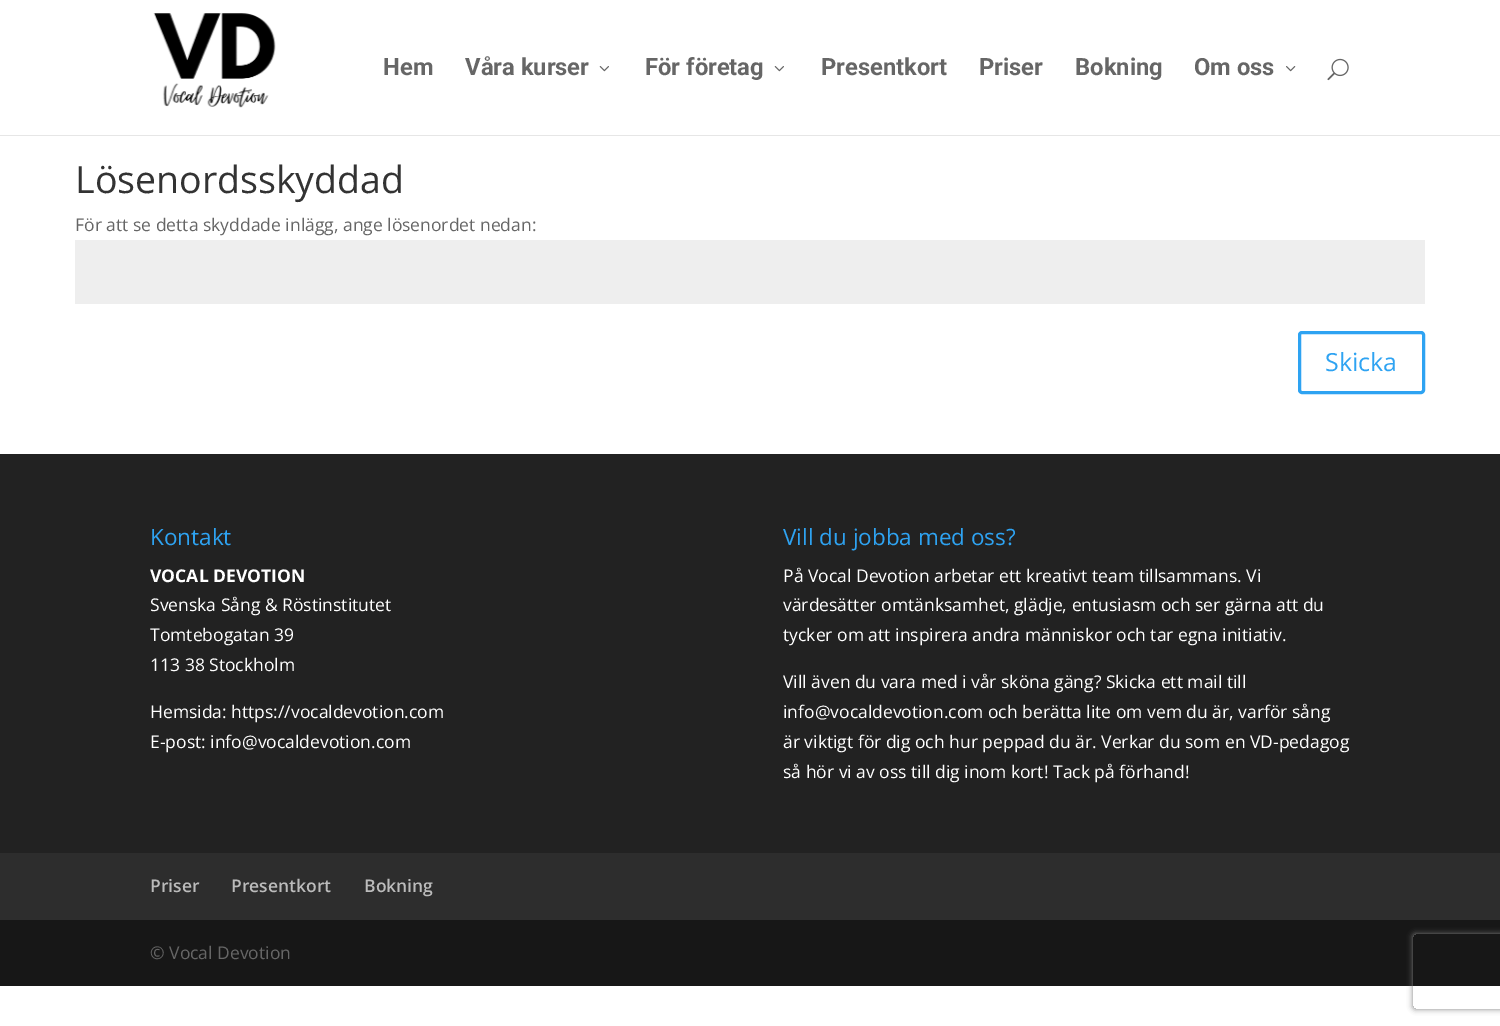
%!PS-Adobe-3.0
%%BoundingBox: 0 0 1500 1026
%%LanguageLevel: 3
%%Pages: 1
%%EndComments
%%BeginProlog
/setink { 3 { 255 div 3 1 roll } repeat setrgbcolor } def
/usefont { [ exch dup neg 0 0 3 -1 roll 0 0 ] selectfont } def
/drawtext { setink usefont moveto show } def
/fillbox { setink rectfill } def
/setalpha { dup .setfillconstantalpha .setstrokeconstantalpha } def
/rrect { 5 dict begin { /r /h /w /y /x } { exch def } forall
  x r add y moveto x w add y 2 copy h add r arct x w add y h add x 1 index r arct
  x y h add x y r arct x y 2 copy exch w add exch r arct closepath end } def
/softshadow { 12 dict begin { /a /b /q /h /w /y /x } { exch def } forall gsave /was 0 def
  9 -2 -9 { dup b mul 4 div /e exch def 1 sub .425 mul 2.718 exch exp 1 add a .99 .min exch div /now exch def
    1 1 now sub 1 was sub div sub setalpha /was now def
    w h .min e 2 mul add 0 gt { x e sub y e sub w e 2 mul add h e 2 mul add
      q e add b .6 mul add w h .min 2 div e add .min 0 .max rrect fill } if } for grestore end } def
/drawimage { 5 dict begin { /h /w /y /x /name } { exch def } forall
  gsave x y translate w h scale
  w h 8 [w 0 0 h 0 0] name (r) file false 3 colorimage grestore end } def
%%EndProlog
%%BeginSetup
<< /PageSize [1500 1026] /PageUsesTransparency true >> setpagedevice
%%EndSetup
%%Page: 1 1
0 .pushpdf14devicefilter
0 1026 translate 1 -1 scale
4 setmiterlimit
0 0 1500 1026 255 255 255 fillbox
0 135 1500 1 230 230 230 fillbox
(assets/img1.rgb) 153 13 123 95 drawimage
(Hem) 383 75 /Roboto-Bold 23.75 102 102 102 drawtext
(Våra kurser) 465 75 /Roboto-Bold 23.75 102 102 102 drawtext
(assets/img2.rgb) 599 66 10 6 drawimage
(För företag) 645 75 /Roboto-Bold 23.75 102 102 102 drawtext
(assets/img2.rgb) 774 66 10 6 drawimage
(Presentkort) 821 75 /Roboto-Bold 23.75 102 102 102 drawtext
(Priser) 979 75 /Roboto-Bold 23.75 102 102 102 drawtext
(Bokning) 1075 75 /Roboto-Bold 23.75 102 102 102 drawtext
(Om oss) 1194 75 /Roboto-Bold 23.75 102 102 102 drawtext
(assets/img3.rgb) 1286 66 10 6 drawimage
(assets/img4.rgb) 1327 58 22 23 drawimage
(Lösenordsskyddad) 75 193 /OpenSans-Regular 37.5 51 51 51 drawtext
(För att se detta skyddade inlägg, ange lösenordet nedan:) 75 231 /OpenSans-Regular 17.5 102 102 102 drawtext
75 240 1350 64 238 238 238 fillbox
46 163 242 setink
3 setlinewidth
1299.5 332.5 124 60 2.5 rrect stroke
(Skicka) 1325 371 /OpenSans-Regular 25 46 163 242 drawtext
0 454 1500 399 34 34 34 fillbox
(Kontakt) 150 545 /OpenSans-Regular 22.5 46 163 242 drawtext
(VOCAL DEVOTION) 150 582 /OpenSans-Bold 17.5 255 255 255 drawtext
(Svenska Sång & Röstinstitutet) 150 611 /OpenSans-Regular 17.5 255 255 255 drawtext
(Tomtebogatan 39) 150 641 /OpenSans-Regular 17.5 255 255 255 drawtext
(113 38 Stockholm) 150 671 /OpenSans-Regular 17.5 255 255 255 drawtext
(Hemsida: https://vocaldevotion.com) 150 718 /OpenSans-Regular 17.5 255 255 255 drawtext
(E-post: info@vocaldevotion.com) 150 748 /OpenSans-Regular 17.5 255 255 255 drawtext
(Vill du jobba med oss?) 783 545 /OpenSans-Regular 22.5 46 163 242 drawtext
(På Vocal Devotion arbetar ett kreativt team tillsammans. Vi) 783 582 /OpenSans-Regular 17.5 255 255 255 drawtext
(värdesätter omtänksamhet, glädje, entusiasm och ser gärna att du) 783 611 /OpenSans-Regular 17.5 255 255 255 drawtext
(tycker om att inspirera andra människor och tar egna initiativ.) 783 641 /OpenSans-Regular 17.5 255 255 255 drawtext
(Vill även du vara med i vår sköna gäng? Skicka ett mail till) 783 688 /OpenSans-Regular 17.5 255 255 255 drawtext
(info@vocaldevotion.com och berätta lite om vem du är, varför sång) 783 718 /OpenSans-Regular 17.5 255 255 255 drawtext
(är viktigt för dig och hur peppad du är. Verkar du som en VD-pedagog) 783 748 /OpenSans-Regular 17.5 255 255 255 drawtext
(så hör vi av oss till dig inom kort! Tack på förhand!) 783 778 /OpenSans-Regular 17.5 255 255 255 drawtext
0 853 1500 67 45 45 45 fillbox
(Priser) 150 892 /OpenSans-SemiBold 17.5 187 187 187 drawtext
(Presentkort) 231 892 /OpenSans-SemiBold 17.5 187 187 187 drawtext
(Bokning) 364 892 /OpenSans-SemiBold 17.5 187 187 187 drawtext
0 920 1500 66 23 23 23 fillbox
(© Vocal Devotion) 150 959 /OpenSans-Regular 17.5 102 102 102 drawtext
gsave
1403 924 moveto 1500 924 lineto 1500 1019 lineto 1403 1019 lineto closepath 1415.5 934 moveto 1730.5 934 lineto 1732 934 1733 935 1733 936.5 curveto 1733 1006.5 lineto 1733 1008 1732 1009 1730.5 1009 curveto 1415.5 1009 lineto 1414 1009 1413 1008 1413 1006.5 curveto 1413 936.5 lineto 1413 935 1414 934 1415.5 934 curveto closepath eoclip newpath
128 128 128 setink
1413 934 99 75 2.5 3 1 softshadow
grestore
.poppdf14devicefilter showpage
%%EOF
